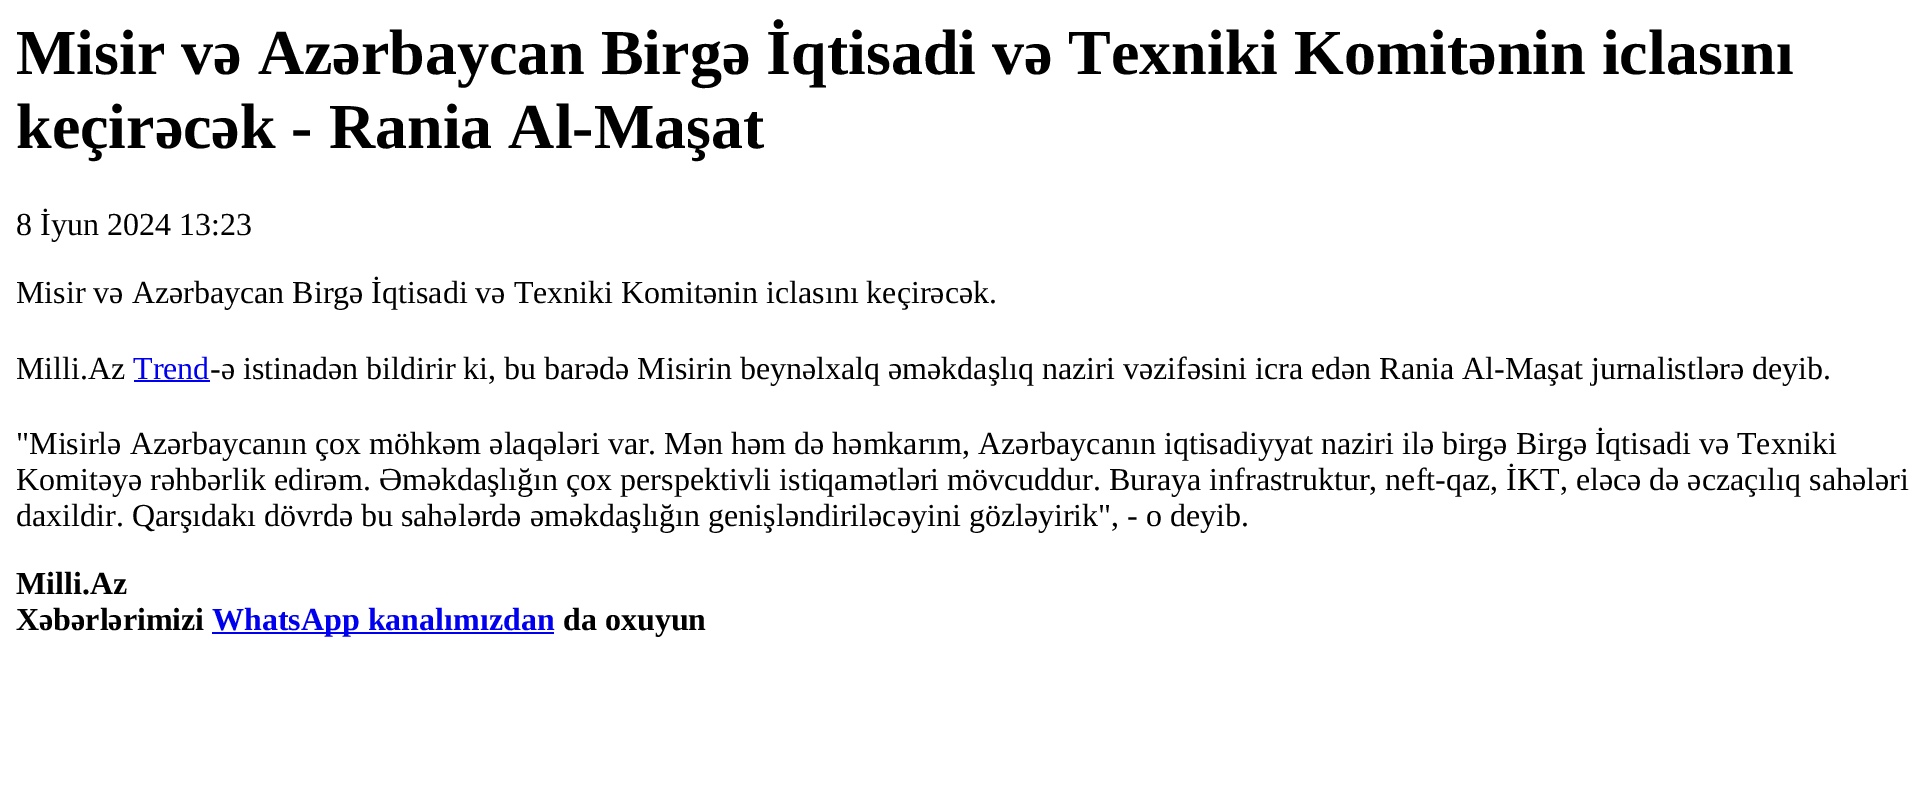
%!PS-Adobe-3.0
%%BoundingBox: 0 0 1929 794
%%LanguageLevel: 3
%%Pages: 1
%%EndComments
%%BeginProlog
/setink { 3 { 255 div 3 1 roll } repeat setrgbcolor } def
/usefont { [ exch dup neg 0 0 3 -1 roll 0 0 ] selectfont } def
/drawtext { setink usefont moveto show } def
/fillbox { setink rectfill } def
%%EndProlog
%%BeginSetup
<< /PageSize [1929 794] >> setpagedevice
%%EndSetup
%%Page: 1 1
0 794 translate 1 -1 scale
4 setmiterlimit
0 0 1929 794 255 255 255 fillbox
(Misir və Azərbaycan Birgə İqtisadi və Texniki Komitənin iclasını) 16 74 /LiberationSerif-Bold 64 0 0 0 drawtext
(keçirəcək - Rania Al-Maşat) 16 148 /LiberationSerif-Bold 64 0 0 0 drawtext
(8 İyun 2024 13:23) 16 235 /LiberationSerif-Regular 32 0 0 0 drawtext
(Misir və Azərbaycan Birgə İqtisadi və Texniki Komitənin iclasını keçirəcək.) 16 303 /LiberationSerif-Regular 32 0 0 0 drawtext
(Milli.Az) 16 379 /LiberationSerif-Regular 32 0 0 0 drawtext
(Trend) 133 379 /LiberationSerif-Regular 32 0 0 238 drawtext
134 380 76 2 0 0 238 fillbox
(-ə istinadən bildirir ki, bu barədə Misirin beynəlxalq əməkdaşlıq naziri vəzifəsini icra edən Rania Al-Maşat jurnalistlərə deyib.) 210 379 /LiberationSerif-Regular 32 0 0 0 drawtext
("Misirlə Azərbaycanın çox möhkəm əlaqələri var. Mən həm də həmkarım, Azərbaycanın iqtisadiyyat naziri ilə birgə Birgə İqtisadi və Texniki) 16 454 /LiberationSerif-Regular 32 0 0 0 drawtext
(Komitəyə rəhbərlik edirəm. Əməkdaşlığın çox perspektivli istiqamətləri mövcuddur. Buraya infrastruktur, neft-qaz, İKT, eləcə də əczaçılıq sahələri) 16 490 /LiberationSerif-Regular 32 0 0 0 drawtext
(daxildir. Qarşıdakı dövrdə bu sahələrdə əməkdaşlığın genişləndiriləcəyini gözləyirik", - o deyib.) 16 526 /LiberationSerif-Regular 32 0 0 0 drawtext
(Milli.Az) 16 594 /LiberationSerif-Bold 32 0 0 0 drawtext
(Xəbərlərimizi) 16 630 /LiberationSerif-Bold 32 0 0 0 drawtext
212 632 342 2 0 0 238 fillbox
(WhatsApp kanalımızdan) 212 630 /LiberationSerif-Bold 32 0 0 238 drawtext
(da oxuyun) 563 630 /LiberationSerif-Bold 32 0 0 0 drawtext
showpage
%%EOF
